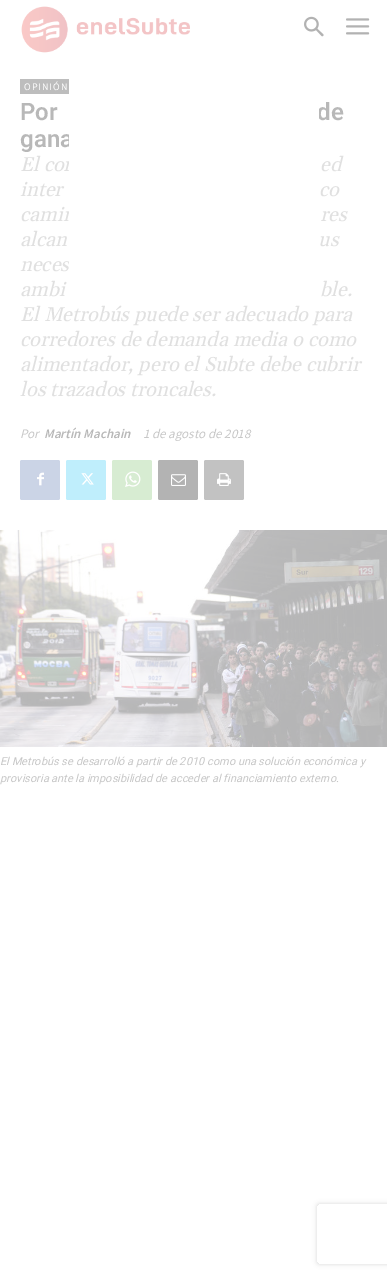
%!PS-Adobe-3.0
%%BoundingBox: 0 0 387 1278
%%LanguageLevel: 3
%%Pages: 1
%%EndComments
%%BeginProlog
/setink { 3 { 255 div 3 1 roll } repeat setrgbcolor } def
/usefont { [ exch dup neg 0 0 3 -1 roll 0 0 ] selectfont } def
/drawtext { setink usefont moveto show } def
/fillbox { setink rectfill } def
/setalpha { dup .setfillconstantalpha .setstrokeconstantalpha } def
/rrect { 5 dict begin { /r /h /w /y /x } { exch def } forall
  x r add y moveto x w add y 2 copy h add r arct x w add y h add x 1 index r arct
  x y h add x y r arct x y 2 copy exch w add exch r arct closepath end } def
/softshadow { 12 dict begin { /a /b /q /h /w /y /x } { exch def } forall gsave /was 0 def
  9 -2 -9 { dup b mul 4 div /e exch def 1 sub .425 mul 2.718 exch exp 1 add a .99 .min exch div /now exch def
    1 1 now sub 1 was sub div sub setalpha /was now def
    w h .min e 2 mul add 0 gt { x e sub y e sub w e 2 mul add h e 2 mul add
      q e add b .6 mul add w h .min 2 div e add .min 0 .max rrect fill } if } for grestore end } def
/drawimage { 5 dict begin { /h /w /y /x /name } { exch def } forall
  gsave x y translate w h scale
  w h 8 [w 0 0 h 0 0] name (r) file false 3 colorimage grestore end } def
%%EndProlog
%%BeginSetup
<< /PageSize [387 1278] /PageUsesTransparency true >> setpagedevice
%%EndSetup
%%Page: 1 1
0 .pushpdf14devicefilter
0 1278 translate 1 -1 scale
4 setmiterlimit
0 0 387 1278 255 255 255 fillbox
(assets/img1.rgb) 21 6 169 47 drawimage
(assets/img2.rgb) 304 16 20 21 drawimage
(assets/img3.rgb) 346 18 24 17 drawimage
20 79 49 15 189 189 189 fillbox
/SourceSansPro-Regular 10 usefont
255 255 255 setink
24 90 moveto 1 0 (OPINIÓN) ashow
(Por) 20 120 /Roboto-SemiBold 24 184 184 184 drawtext
(de) 317 120 /Roboto-SemiBold 24 184 184 184 drawtext
(gana) 20 147 /Roboto-SemiBold 24 184 184 184 drawtext
(El cor) 20 171 /Gelasio-Italic 20 224 224 224 drawtext
(ed) 320 171 /Gelasio-Italic 20 224 224 224 drawtext
(inter) 20 196 /Gelasio-Italic 20 224 224 224 drawtext
(co) 319 196 /Gelasio-Italic 20 224 224 224 drawtext
(camin) 20 221 /Gelasio-Italic 20 224 224 224 drawtext
(res) 320 221 /Gelasio-Italic 20 224 224 224 drawtext
(alcan) 20 246 /Gelasio-Italic 20 224 224 224 drawtext
(us) 318 246 /Gelasio-Italic 20 224 224 224 drawtext
(neces) 20 271 /Gelasio-Italic 20 224 224 224 drawtext
(ambi) 20 296 /Gelasio-Italic 20 224 224 224 drawtext
(ble.) 320 296 /Gelasio-Italic 20 224 224 224 drawtext
(El Metrobús puede ser adecuado para) 20 321 /Gelasio-Italic 20 224 224 224 drawtext
(corredores de demanda media o como) 20 346 /Gelasio-Italic 20 224 224 224 drawtext
(alimentador, pero el Subte debe cubrir) 20 371 /Gelasio-Italic 20 224 224 224 drawtext
(los trazados troncales.) 20 396 /Gelasio-Italic 20 224 224 224 drawtext
(Por) 20 438 /SourceSansPro-Italic 13 199 199 199 drawtext
(Martín Machain) 44 438 /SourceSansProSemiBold-SemiBoldItalic 13 184 184 184 drawtext
(1 de agosto de 2018) 143 438 /SourceSansPro-Italic 13 199 199 199 drawtext
203 212 230 setink
20 460 40 40 2 rrect fill
(assets/img4.rgb) 37 472 7 14 drawimage
191 238 252 setink
66 460 40 40 2 rrect fill
(assets/img5.rgb) 81 473 13 12 drawimage
215 236 210 setink
112 460 40 40 2 rrect fill
(assets/img6.rgb) 125 471 16 16 drawimage
179 179 179 setink
158 460 40 40 2 rrect fill
(assets/img7.rgb) 171 474 15 12 drawimage
194 194 194 setink
204 460 40 40 2 rrect fill
(assets/img8.rgb) 217 473 14 13 drawimage
(assets/img9.rgb) 0 530 387 217 drawimage
(El Metrobús se desarrolló a partir de 2010 como una solución económica y) 0 765 /Roboto-Italic 11 199 199 199 drawtext
(provisoria ante la imposibilidad de acceder al financiamiento externo.) 0 782 /Roboto-Italic 11 199 199 199 drawtext
69 109 250 155 255 255 255 fillbox
gsave
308 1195 moveto 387 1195 lineto 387 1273 lineto 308 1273 lineto closepath 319 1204 moveto 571 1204 lineto 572 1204 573 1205 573 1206 curveto 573 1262 lineto 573 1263 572 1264 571 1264 curveto 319 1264 lineto 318 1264 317 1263 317 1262 curveto 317 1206 lineto 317 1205 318 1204 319 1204 curveto closepath eoclip newpath
217 217 217 setink
317 1204 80 60 2 2.5 1 softshadow
grestore
.poppdf14devicefilter showpage
%%EOF
